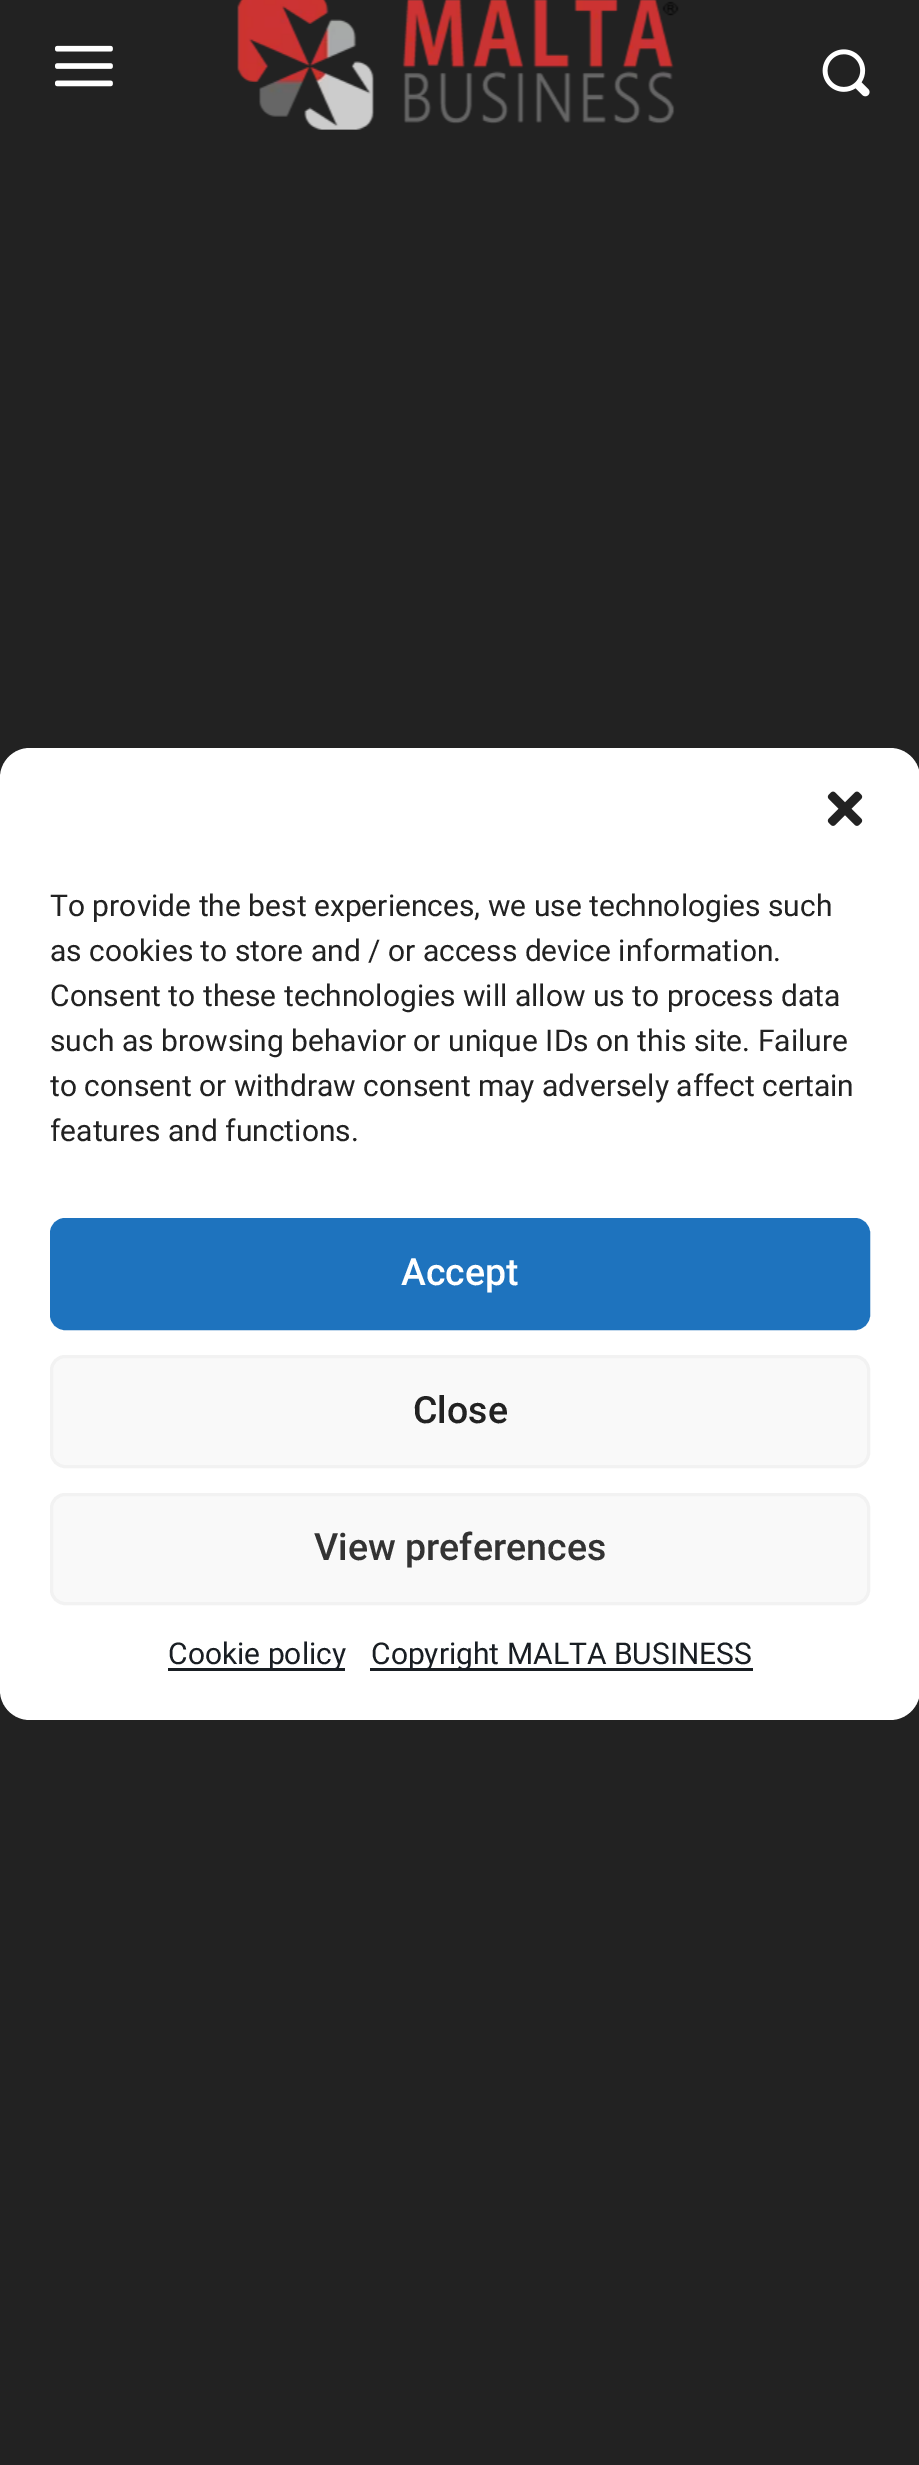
%!PS-Adobe-3.0
%%BoundingBox: 0 0 919 2465
%%LanguageLevel: 3
%%Pages: 1
%%EndComments
%%BeginProlog
/setink { 3 { 255 div 3 1 roll } repeat setrgbcolor } def
/usefont { [ exch dup neg 0 0 3 -1 roll 0 0 ] selectfont } def
/drawtext { setink usefont moveto show } def
/fillbox { setink rectfill } def
/rrect { 5 dict begin { /r /h /w /y /x } { exch def } forall
  x r add y moveto x w add y 2 copy h add r arct x w add y h add x 1 index r arct
  x y h add x y r arct x y 2 copy exch w add exch r arct closepath end } def
/drawimage { 5 dict begin { /h /w /y /x /name } { exch def } forall
  gsave x y translate w h scale
  w h 8 [w 0 0 h 0 0] name (r) file false 3 colorimage grestore end } def
%%EndProlog
%%BeginSetup
<< /PageSize [919 2465] >> setpagedevice
%%EndSetup
%%Page: 1 1
0 2465 translate 1 -1 scale
4 setmiterlimit
0 0 919 2465 34 34 34 fillbox
(assets/img1.rgb) 55 45 58 42 drawimage
(assets/img2.rgb) 237 0 442 130 drawimage
(assets/img3.rgb) 822 49 48 48 drawimage
255 255 255 setink
0 748 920 972 30 rrect fill
(assets/img4.rgb) 827 791 36 35 drawimage
(To provide the best experiences, we use technologies such) 50 916 /Roboto-Regular 30 34 34 34 drawtext
(as cookies to store and / or access device information.) 50 961 /Roboto-Regular 30 34 34 34 drawtext
(Consent to these technologies will allow us to process data) 50 1006 /Roboto-Regular 30 34 34 34 drawtext
(such as browsing behavior or unique IDs on this site. Failure) 50 1051 /Roboto-Regular 30 34 34 34 drawtext
(to consent or withdraw consent may adversely affect certain) 50 1096 /Roboto-Regular 30 34 34 34 drawtext
(features and functions.) 50 1141 /Roboto-Regular 30 34 34 34 drawtext
30 115 190 setink
51.5 1219.5 817 109 13.5 rrect gsave fill grestore
3 setlinewidth
stroke
(Accept) 401 1285 /Roboto-Medium 37.5 255 255 255 drawtext
249 249 249 setink
51.5 1356.5 817 110 13.5 rrect gsave fill grestore
242 242 242 setink
stroke
(Close) 413 1423 /Roboto-Medium 37.5 34 34 34 drawtext
249 249 249 setink
51.5 1494.5 817 109 13.5 rrect gsave fill grestore
242 242 242 setink
stroke
(View preferences) 314 1560 /Roboto-Medium 37.5 51 51 51 drawtext
168 1668 177 3 25 30 35 fillbox
(Cookie policy) 168 1664 /Roboto-Regular 30 25 30 35 drawtext
370 1668 383 3 25 30 35 fillbox
(Copyright MALTA BUSINESS) 371 1664 /Roboto-Regular 30 25 30 35 drawtext
showpage
%%EOF
